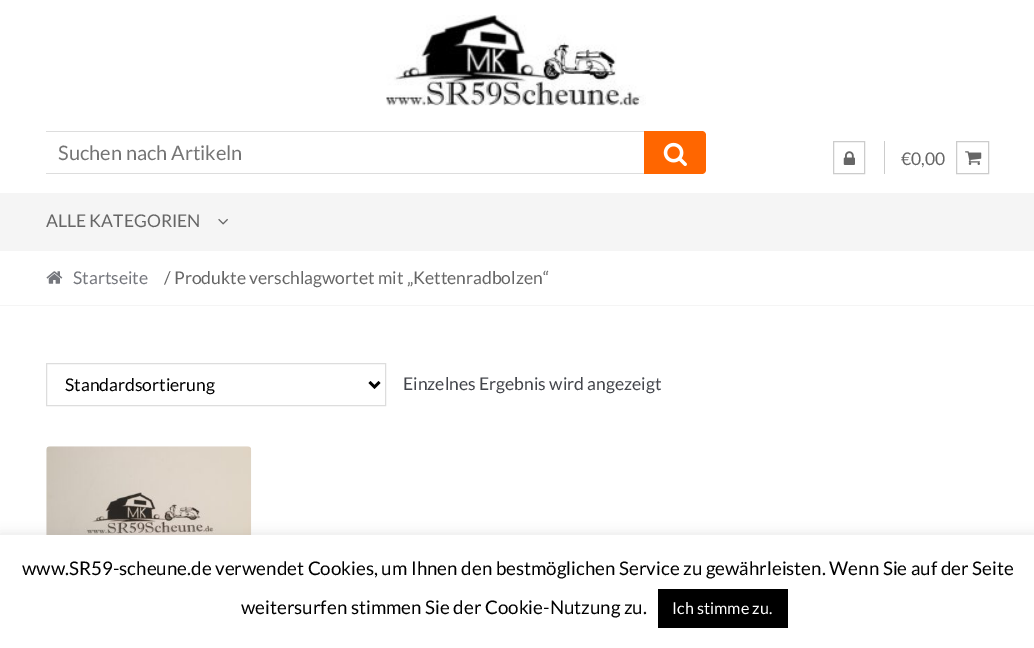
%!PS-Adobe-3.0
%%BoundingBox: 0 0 1034 648
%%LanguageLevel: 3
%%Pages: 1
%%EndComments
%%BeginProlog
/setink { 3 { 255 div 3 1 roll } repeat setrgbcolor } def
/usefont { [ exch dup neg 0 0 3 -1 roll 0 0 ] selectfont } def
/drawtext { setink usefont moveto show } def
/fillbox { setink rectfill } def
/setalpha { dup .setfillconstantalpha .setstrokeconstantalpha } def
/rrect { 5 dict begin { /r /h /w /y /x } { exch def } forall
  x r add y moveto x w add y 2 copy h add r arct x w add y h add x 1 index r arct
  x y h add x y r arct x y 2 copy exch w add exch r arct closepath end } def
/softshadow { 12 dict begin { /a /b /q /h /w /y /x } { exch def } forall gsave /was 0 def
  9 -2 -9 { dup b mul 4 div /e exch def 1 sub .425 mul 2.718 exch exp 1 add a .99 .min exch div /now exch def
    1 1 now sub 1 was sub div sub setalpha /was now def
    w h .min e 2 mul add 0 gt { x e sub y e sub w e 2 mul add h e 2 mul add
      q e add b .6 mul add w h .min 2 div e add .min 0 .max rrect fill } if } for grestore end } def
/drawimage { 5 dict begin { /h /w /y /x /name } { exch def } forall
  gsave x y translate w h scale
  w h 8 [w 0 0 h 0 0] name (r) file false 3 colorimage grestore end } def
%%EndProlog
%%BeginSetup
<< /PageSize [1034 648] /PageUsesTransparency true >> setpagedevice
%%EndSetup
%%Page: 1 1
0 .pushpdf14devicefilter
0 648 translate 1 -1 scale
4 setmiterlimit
0 0 1034 648 255 255 255 fillbox
(assets/img1.rgb) 386 15 260 91 drawimage
46 131 598 1 221 221 221 fillbox
46 173 598 1 221 221 221 fillbox
(Suchen nach Artikeln) 58 160 /Lato-Regular 20 117 117 117 drawtext
255 102 0 setink
644 131 moveto 702 131 lineto 704 131 706 133 706 135 curveto 706 170 lineto 706 172 704 174 702 174 curveto 644 174 lineto closepath fill
(assets/img2.rgb) 663 142 24 25 drawimage
884 141 1 33 204 204 204 fillbox
833.5 141.5 31 32 rectstroke
(assets/img3.rgb) 843 151 12 14 drawimage
(€0,00) 901 165 /Lato-Regular 17.5 102 102 102 drawtext
204 204 204 setink
956.5 141.5 32 32 rectstroke
(assets/img4.rgb) 965 151 17 14 drawimage
0 193 1034 58 245 245 245 fillbox
(ALLE KATEGORIEN) 46 227 /Lato-Regular 17.5 102 102 102 drawtext
(assets/img5.rgb) 218 218 10 7 drawimage
0 305 1034 1 245 245 245 fillbox
(assets/img6.rgb) 46 271 17 13 drawimage
(Startseite) 73 284 /Lato-Regular 17.5 117 119 125 drawtext
(/ Produkte verschlagwortet mit „Kettenradbolzen“) 164 284 /Lato-Regular 17.5 102 102 102 drawtext
221 221 221 setink
46.5 363.5 339 42 rectstroke
0 0 0 setink
2.5 setlinewidth
369.5 382 moveto 374.5 387 lineto 379.5 382 lineto stroke
(Standardsortierung) 65 391 /Lato-Regular 17.5 0 0 0 drawtext
(Einzelnes Ergebnis wird angezeigt) 403 390 /Lato-Regular 17.5 67 69 75 drawtext
(assets/img7.rgb) 46 446 206 89 drawimage
172 171 171 setink
0 534 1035 114 0 6 0.3 softshadow
0 535 1034 113 255 255 255 fillbox
(www.SR59-scheune.de verwendet Cookies, um Ihnen den bestmöglichen Service zu gewährleisten. Wenn Sie auf der Seite) 22 575 /Lato-Regular 18.75 0 0 0 drawtext
(weitersurfen stimmen Sie der Cookie-Nutzung zu.) 241 614 /Lato-Regular 18.75 0 0 0 drawtext
658 589 130 39 0 0 0 fillbox
(Ich stimme zu.) 672 614 /Lato-Regular 16.25 255 255 255 drawtext
.poppdf14devicefilter showpage
%%EOF
